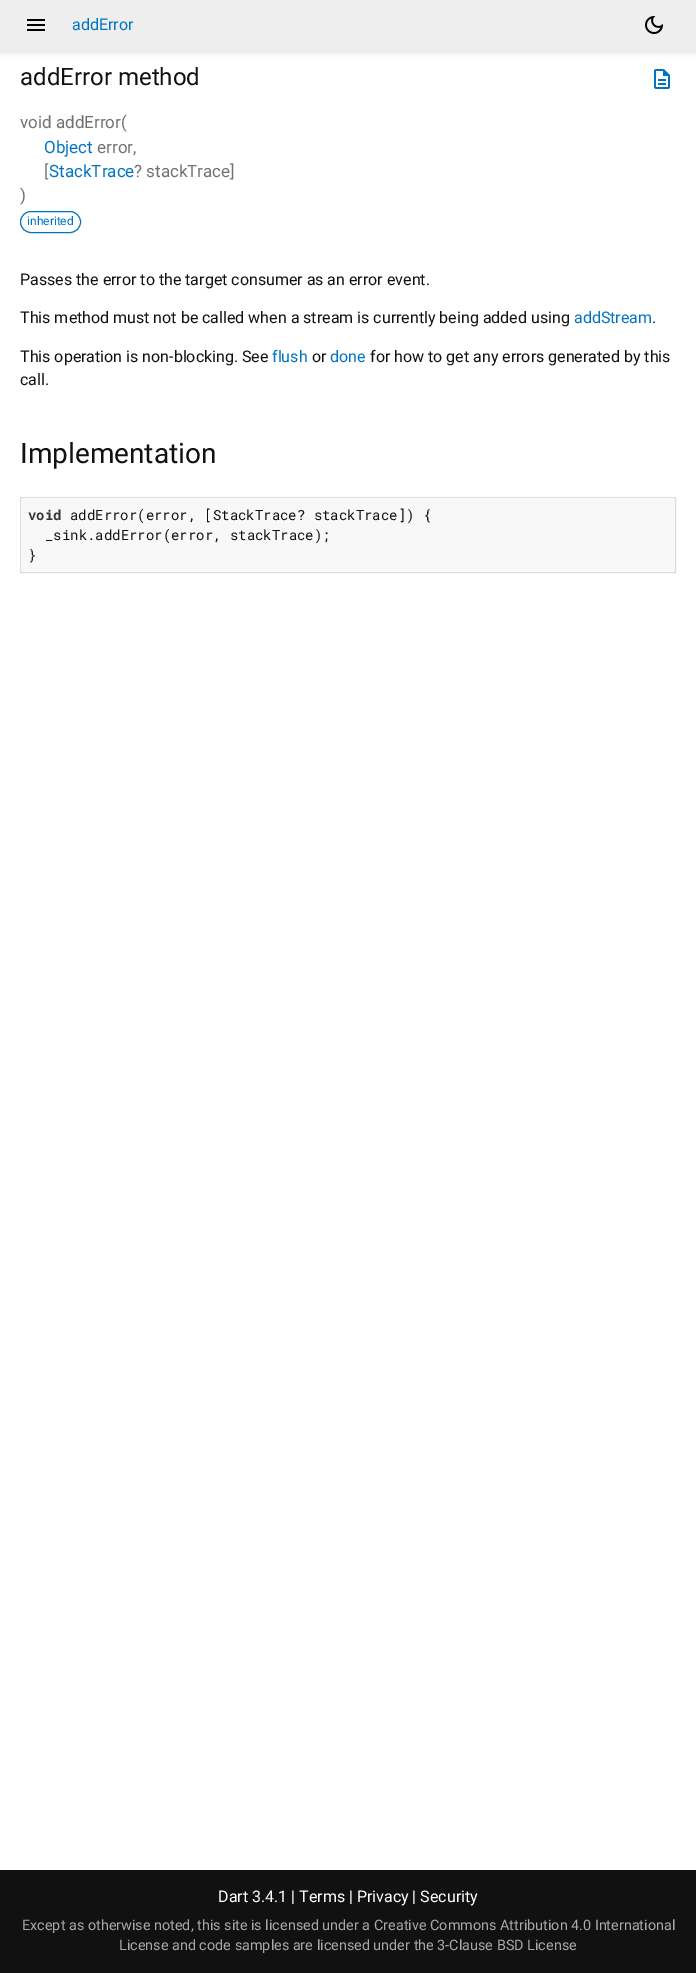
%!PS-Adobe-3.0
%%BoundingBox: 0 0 696 1973
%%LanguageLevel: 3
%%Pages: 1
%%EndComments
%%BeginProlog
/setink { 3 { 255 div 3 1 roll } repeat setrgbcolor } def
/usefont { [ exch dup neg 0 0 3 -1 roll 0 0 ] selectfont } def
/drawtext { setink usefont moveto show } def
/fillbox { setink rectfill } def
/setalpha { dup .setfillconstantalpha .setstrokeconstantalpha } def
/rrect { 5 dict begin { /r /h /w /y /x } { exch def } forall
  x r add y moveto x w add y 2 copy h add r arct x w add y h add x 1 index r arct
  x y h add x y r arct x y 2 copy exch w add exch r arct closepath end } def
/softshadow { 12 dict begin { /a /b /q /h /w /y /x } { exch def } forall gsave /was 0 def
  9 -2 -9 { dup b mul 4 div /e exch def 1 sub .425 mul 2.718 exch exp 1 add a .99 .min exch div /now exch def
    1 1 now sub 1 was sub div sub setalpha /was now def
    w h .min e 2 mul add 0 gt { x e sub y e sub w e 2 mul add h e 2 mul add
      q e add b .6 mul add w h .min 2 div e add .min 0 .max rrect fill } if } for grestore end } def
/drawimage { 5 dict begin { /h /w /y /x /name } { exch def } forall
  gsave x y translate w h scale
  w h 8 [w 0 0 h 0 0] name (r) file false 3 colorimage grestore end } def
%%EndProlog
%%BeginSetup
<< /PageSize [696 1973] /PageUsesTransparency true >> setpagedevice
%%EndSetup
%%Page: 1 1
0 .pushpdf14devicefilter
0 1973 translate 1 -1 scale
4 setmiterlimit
0 0 696 1973 255 255 255 fillbox
0 0 0 setink
0 3 696 50 0 2.5 0.1 softshadow
0 0 696 50 238 238 238 fillbox
(assets/img1.rgb) 27 19 18 12 drawimage
(addError) 72 30 /Roboto-Regular 16 1 117 194 drawtext
(assets/img2.rgb) 645 16 18 18 drawimage
(addError method) 20 85 /Roboto-Regular 24 17 17 17 drawtext
(assets/img3.rgb) 654 69 16 20 drawimage
(void addError\() 20 128 /Roboto-Regular 17 114 114 114 drawtext
(Object) 44 153 /Roboto-Regular 17 1 117 194 drawtext
(error,) 97 153 /Roboto-Regular 17 114 114 114 drawtext
([) 44 177 /Roboto-Regular 17 114 114 114 drawtext
(StackTrace) 49 177 /Roboto-Regular 17 1 117 194 drawtext
(? stackTrace]) 134 177 /Roboto-Regular 17 114 114 114 drawtext
(\)) 20 201 /Roboto-Regular 17 114 114 114 drawtext
1 117 194 setink
20.5 211.5 60 21 10.5 rrect stroke
(inherited) 27 225 /Roboto-Regular 12 1 117 194 drawtext
(Passes the error to the target consumer as an error event.) 20 285 /Roboto-Regular 16 17 17 17 drawtext
(This method must not be called when a stream is currently being added using) 20 323 /Roboto-Regular 16 17 17 17 drawtext
(addStream) 574 323 /Roboto-Regular 16 1 117 194 drawtext
(.) 652 323 /Roboto-Regular 16 17 17 17 drawtext
(This operation is non-blocking. See) 20 362 /Roboto-Regular 16 17 17 17 drawtext
(flush) 272 362 /Roboto-Regular 16 1 117 194 drawtext
(or) 312 362 /Roboto-Regular 16 17 17 17 drawtext
(done) 330 362 /Roboto-Regular 16 1 117 194 drawtext
(for how to get any errors generated by this) 370 362 /Roboto-Regular 16 17 17 17 drawtext
(call.) 20 385 /Roboto-Regular 16 17 17 17 drawtext
(Implementation) 20 463 /Roboto-Regular 28 17 17 17 drawtext
238 238 238 setink
20.5 497.5 moveto 675.5 497.5 lineto 675.5 572.5 lineto 20.5 572.5 lineto closepath gsave fill grestore
221 221 221 setink
stroke
248 248 248 setink
21 498 654 74 3 rrect fill
(void) 28 520 /RobotoMono-Bold 14 51 51 51 drawtext
(addError\(error, [StackTrace? stackTrace]\) {) 70 520 /RobotoMono-Regular 14 17 17 17 drawtext
(_sink.addError\(error, stackTrace\);) 45 540 /RobotoMono-Regular 14 17 17 17 drawtext
(}) 28 560 /RobotoMono-Regular 14 17 17 17 drawtext
0 1870 696 103 17 17 17 fillbox
(Dart 3.4.1 | Terms | Privacy | Security) 218 1902 /Roboto-Regular 16 255 255 255 drawtext
(Except as otherwise noted, this site is licensed under a Creative Commons Attribution 4.0 International) 22 1930 /Roboto-Regular 14.4 169 169 169 drawtext
(License and code samples are licensed under the 3-Clause BSD License) 119 1950 /Roboto-Regular 14.4 169 169 169 drawtext
.poppdf14devicefilter showpage
%%EOF
